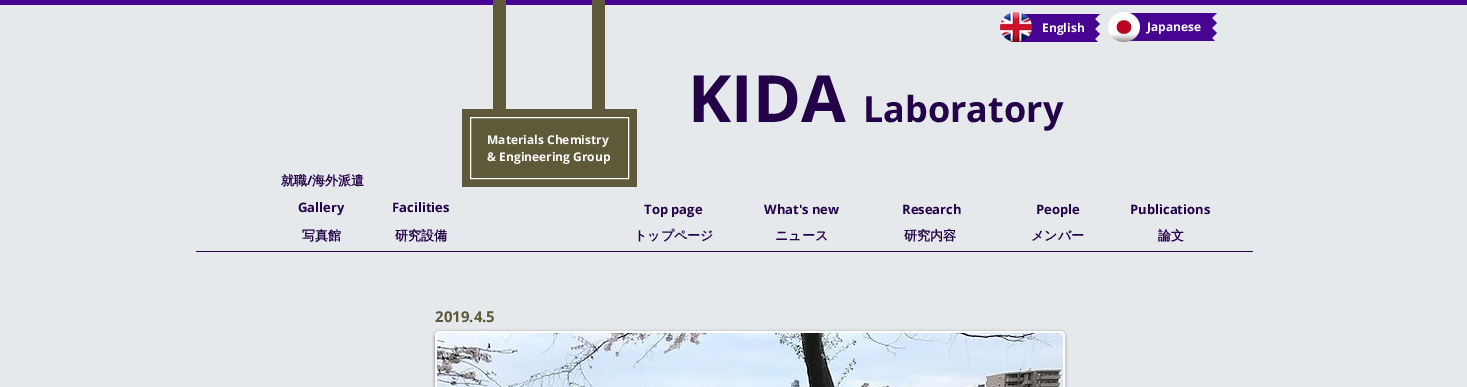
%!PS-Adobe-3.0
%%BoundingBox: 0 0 1467 387
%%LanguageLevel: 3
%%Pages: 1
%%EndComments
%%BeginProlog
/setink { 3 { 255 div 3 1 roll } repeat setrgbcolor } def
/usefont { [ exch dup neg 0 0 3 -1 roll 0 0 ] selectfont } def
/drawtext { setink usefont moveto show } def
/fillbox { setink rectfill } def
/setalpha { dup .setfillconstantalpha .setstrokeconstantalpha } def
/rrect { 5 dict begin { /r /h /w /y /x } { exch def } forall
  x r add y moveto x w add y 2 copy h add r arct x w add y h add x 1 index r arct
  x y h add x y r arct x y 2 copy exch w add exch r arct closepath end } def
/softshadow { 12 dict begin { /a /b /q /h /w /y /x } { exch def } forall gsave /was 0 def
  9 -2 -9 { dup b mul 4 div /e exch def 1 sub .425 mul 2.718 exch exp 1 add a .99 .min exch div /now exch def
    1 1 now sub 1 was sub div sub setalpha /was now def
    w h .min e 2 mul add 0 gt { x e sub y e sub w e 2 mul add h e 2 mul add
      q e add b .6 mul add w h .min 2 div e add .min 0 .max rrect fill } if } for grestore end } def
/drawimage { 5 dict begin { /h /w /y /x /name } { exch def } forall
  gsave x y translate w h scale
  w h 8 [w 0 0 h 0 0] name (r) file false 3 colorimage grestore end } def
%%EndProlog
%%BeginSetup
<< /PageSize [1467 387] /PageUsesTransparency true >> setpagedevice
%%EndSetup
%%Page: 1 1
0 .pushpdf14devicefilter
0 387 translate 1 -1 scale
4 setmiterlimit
0 0 1467 387 230 233 235 fillbox
0 0 1467 5 71 4 147 fillbox
493 0 13 109 94 89 56 fillbox
592 0 13 109 94 89 56 fillbox
1011 14 84 28 71 4 147 fillbox
(assets/img1.rgb) 1000 12 32 30 drawimage
(English) 1042 32 /OpenSans-Bold 12 255 255 255 drawtext
gsave
1095 14 5 28 rectclip
71 4 147 setink
1095 19 moveto 1095 9 lineto 1100 14 lineto closepath fill
grestore
71 4 147 setink
1095 29 moveto 1095 19 lineto 1100 24 lineto closepath 1095 39 moveto 1095 29 lineto 1100 34 lineto closepath fill
gsave
1095 14 5 28 rectclip
1095 49 moveto 1095 39 lineto 1100 44 lineto closepath fill
grestore
1118 13 94 28 71 4 147 fillbox
(assets/img2.rgb) 1108 12 32 30 drawimage
(Japanese) 1147 31 /OpenSans-Bold 12 255 255 255 drawtext
gsave
1212 13 5 28 rectclip
71 4 147 setink
1212 18 moveto 1212 8 lineto 1217 13 lineto closepath fill
grestore
71 4 147 setink
1212 28 moveto 1212 18 lineto 1217 23 lineto closepath 1212 38 moveto 1212 28 lineto 1217 33 lineto closepath fill
gsave
1212 13 5 28 rectclip
1212 48 moveto 1212 38 lineto 1217 43 lineto closepath fill
grestore
(KIDA) 688 122 /OpenSans-Bold 65 35 2 73 drawtext
(Laboratory) 863 122 /OpenSans-Bold 36 35 2 73 drawtext
462 109 175 78 94 89 56 fillbox
255 255 255 setink
470.5 117.5 158 61 rectstroke
(Materials Chemistry) 487 144 /OpenSans-Bold 12 255 255 255 drawtext
(& Engineering Group) 487 161 /OpenSans-Bold 12 255 255 255 drawtext
(就職) 281 185 /WenQuanYiZenHei-Bold 13 35 2 73 drawtext
(/) 307 185 /OpenSans-Bold 13 35 2 73 drawtext
(海外派遣) 312 185 /WenQuanYiZenHei-Bold 13 35 2 73 drawtext
(Gallery) 298 212 /OpenSans-Bold 13 35 2 73 drawtext
(Facilities) 392 212 /OpenSans-Bold 13 35 2 73 drawtext
(Top page) 644 214 /OpenSans-Bold 13 35 2 73 drawtext
(What's new) 764 214 /OpenSans-Bold 13 35 2 73 drawtext
(Research) 902 214 /OpenSans-Bold 13 35 2 73 drawtext
(People) 1036 214 /OpenSans-Bold 13 35 2 73 drawtext
(Publications) 1130 214 /OpenSans-Bold 13 35 2 73 drawtext
(写真館) 302 240 /WenQuanYiZenHei-Bold 13 35 2 73 drawtext
(研究設備) 395 240 /WenQuanYiZenHei-Bold 13 35 2 73 drawtext
(トップページ) 634 240 /WenQuanYiZenHei-Bold 13 35 2 73 drawtext
(ニュース) 775 240 /WenQuanYiZenHei-Bold 13 35 2 73 drawtext
(研究内容) 904 240 /WenQuanYiZenHei-Bold 13 35 2 73 drawtext
(メンバー) 1031 240 /WenQuanYiZenHei-Bold 13 35 2 73 drawtext
(論文) 1158 240 /WenQuanYiZenHei-Bold 13 35 2 73 drawtext
196 251 1057 1 35 2 73 fillbox
(2019.4.5) 435 322 /OpenSans-Bold 15 94 89 56 drawtext
0 0 0 setink
435 332 630 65 5 1.5 0.5 softshadow
255 255 255 setink
436 332 628 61 4 rrect gsave fill grestore
2 setlinewidth
stroke
(assets/img3.rgb) 437 333 626 54 drawimage
.poppdf14devicefilter showpage
%%EOF
